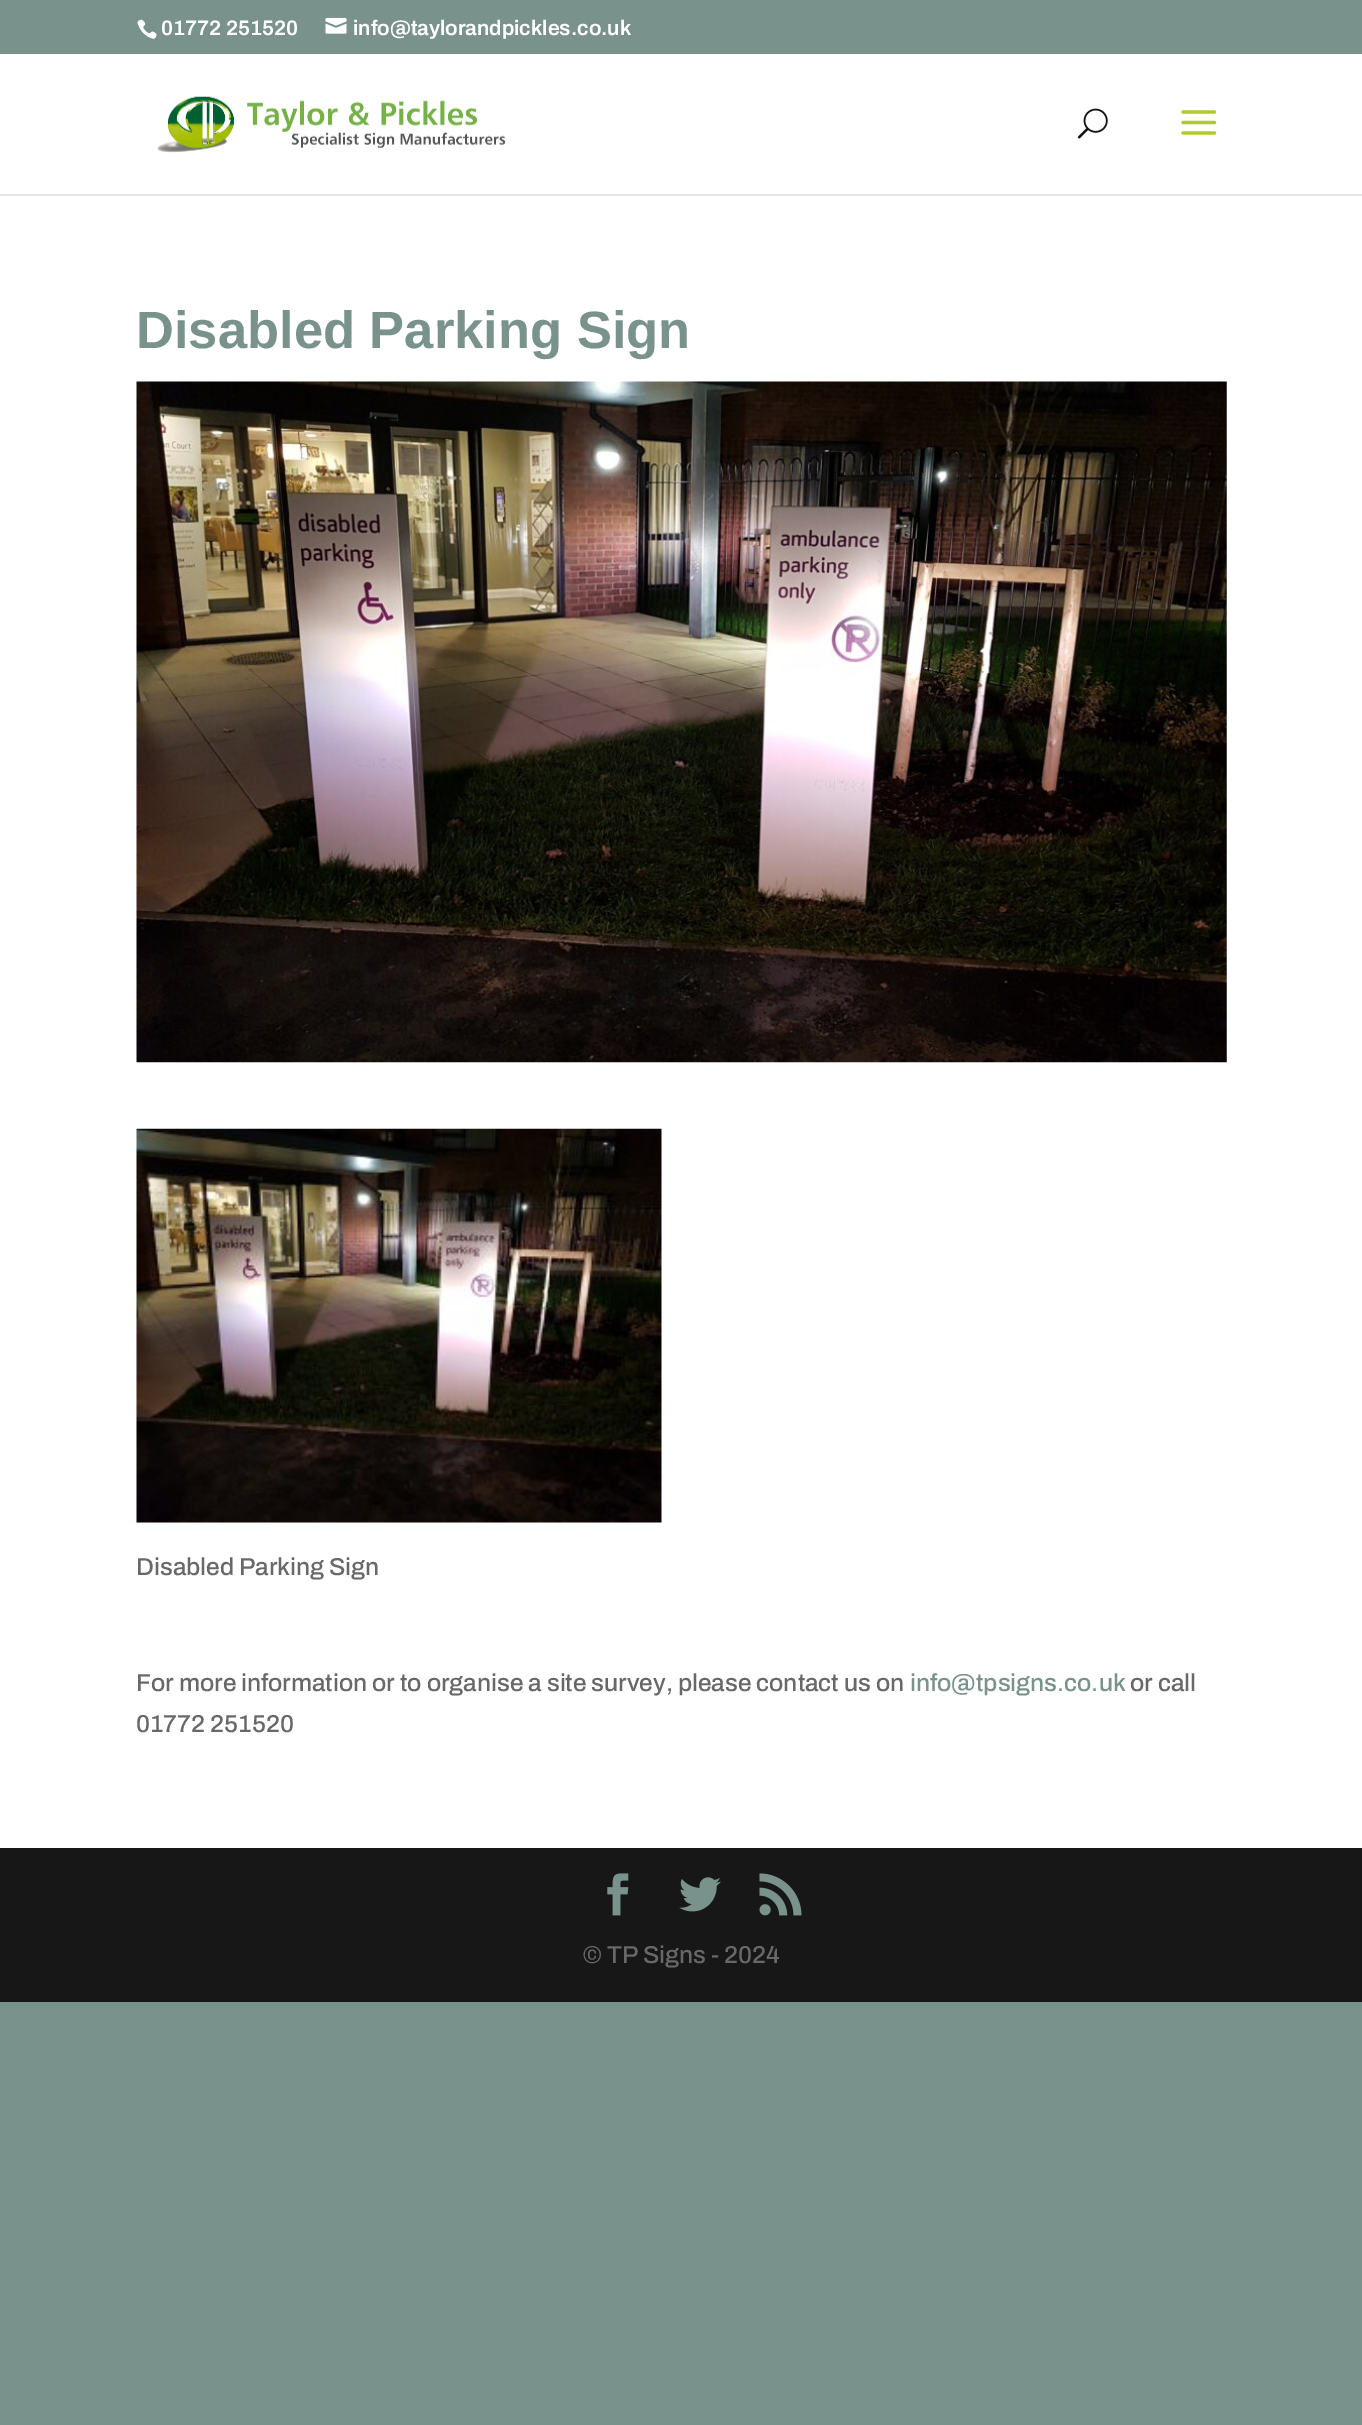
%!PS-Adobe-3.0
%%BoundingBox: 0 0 1362 2425
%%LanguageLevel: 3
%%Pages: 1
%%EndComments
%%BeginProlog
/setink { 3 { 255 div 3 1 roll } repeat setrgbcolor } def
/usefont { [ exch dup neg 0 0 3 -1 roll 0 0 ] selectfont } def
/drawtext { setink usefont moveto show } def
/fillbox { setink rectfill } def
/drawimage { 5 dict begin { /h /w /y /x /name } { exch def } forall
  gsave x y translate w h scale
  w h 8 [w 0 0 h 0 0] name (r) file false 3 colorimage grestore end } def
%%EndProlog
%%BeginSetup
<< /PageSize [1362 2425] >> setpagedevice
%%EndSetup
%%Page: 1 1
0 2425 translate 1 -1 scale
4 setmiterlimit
0 0 1362 2425 121 146 140 fillbox
(assets/img1.rgb) 137 19 20 20 drawimage
(01772 251520) 161 35 /Archivo-SemiBold 21 255 255 255 drawtext
(assets/img2.rgb) 325 17 22 17 drawimage
(info@taylorandpickles.co.uk) 353 35 /Archivo-SemiBold 21 255 255 255 drawtext
0 194 1362 2 230 230 230 fillbox
0 54 1362 140 255 255 255 fillbox
(assets/img3.rgb) 157 96 349 57 drawimage
(assets/img4.rgb) 1077 108 31 31 drawimage
(assets/img5.rgb) 1181 110 36 25 drawimage
0 196 1362 1652 255 255 255 fillbox
(Disabled Parking Sign) 136 348 /LiberationSans-Bold 52.5 121 146 140 drawtext
(assets/img6.rgb) 136 381 1091 682 drawimage
(assets/img7.rgb) 136 1128 526 395 drawimage
(Disabled Parking Sign) 136 1575 /Archivo-Medium 24.5 104 104 104 drawtext
(For more information or to organise a site survey, please contact us on) 136 1691 /Archivo-Medium 24.5 104 104 104 drawtext
(info@tpsigns.co.uk) 910 1691 /Archivo-Medium 24.5 121 146 140 drawtext
(or call) 1130 1691 /Archivo-Medium 24.5 104 104 104 drawtext
(01772 251520) 136 1732 /Archivo-Medium 24.5 104 104 104 drawtext
0 1848 1362 154 23 23 23 fillbox
(assets/img8.rgb) 607 1873 22 43 drawimage
(assets/img9.rgb) 679 1877 42 35 drawimage
(assets/img10.rgb) 759 1873 43 43 drawimage
(© TP Signs - 2024) 583 1963 /Archivo-Medium 24.5 104 104 104 drawtext
showpage
%%EOF
